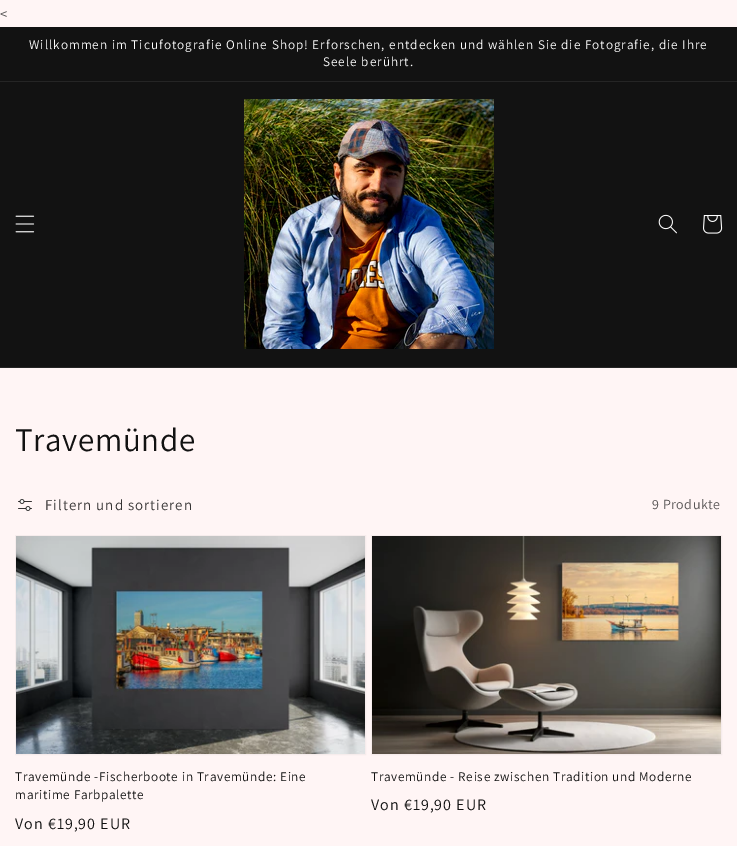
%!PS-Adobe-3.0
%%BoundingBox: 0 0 737 846
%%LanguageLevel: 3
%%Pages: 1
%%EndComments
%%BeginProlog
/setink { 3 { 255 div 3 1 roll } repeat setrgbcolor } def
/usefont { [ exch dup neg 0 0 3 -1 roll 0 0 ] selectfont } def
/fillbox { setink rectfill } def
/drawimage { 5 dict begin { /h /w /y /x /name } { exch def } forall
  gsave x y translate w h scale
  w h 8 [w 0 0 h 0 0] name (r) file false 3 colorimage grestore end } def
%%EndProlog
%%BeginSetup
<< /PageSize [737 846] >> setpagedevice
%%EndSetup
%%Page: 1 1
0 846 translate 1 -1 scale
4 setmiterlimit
0 0 737 846 255 245 245 fillbox
/Assistant-Regular 15 usefont
77 75 75 setink
0 19 moveto 0.5 0 (<) ashow
0 27 737 54 18 18 18 fillbox
0 81 737 1 37 37 37 fillbox
/Assistant-Regular 13.2 usefont
255 255 255 setink
29 49 moveto 1 0 (Willkommen im Ticufotografie Online Shop! Erforschen, entdecken und wählen Sie die Fotografie, die Ihre) ashow
323 66 moveto 1 0 (Seele berührt.) ashow
0 82 737 285 18 18 18 fillbox
0 367 737 1 37 37 37 fillbox
(assets/img1.rgb) 15 215 20 18 drawimage
(assets/img2.rgb) 244 99 250 250 drawimage
(assets/img3.rgb) 658 214 19 20 drawimage
(assets/img4.rgb) 703 215 20 19 drawimage
/Assistant-Regular 33 usefont
18 18 18 setink
15 451 moveto 0.65 0 (Travemünde) ashow
(assets/img5.rgb) 18 499 14 12 drawimage
/Assistant-Regular 15 usefont
54 52 52 setink
45 510 moveto 1 0 (Filtern und sortieren) ashow
/Assistant-Regular 14 usefont
89 86 86 setink
652 509 moveto 0.5 0 (9 Produkte) ashow
246 236 236 setink
15.5 535.5 350 219 rectstroke
(assets/img6.rgb) 16 536 349 218 drawimage
/Assistant-Regular 13.2 usefont
18 18 18 setink
15 781 moveto 0.65 0 (Travemünde -Fischerboote in Travemünde: Eine) ashow
15 799 moveto 0.65 0 (maritime Farbpalette) ashow
/Assistant-Regular 16 usefont
15 829 moveto 1 0 (Von €19,90 EUR) ashow
246 236 236 setink
371.5 535.5 350 219 rectstroke
(assets/img7.rgb) 372 536 349 218 drawimage
/Assistant-Regular 13.2 usefont
18 18 18 setink
371 781 moveto 0.65 0 (Travemünde - Reise zwischen Tradition und Moderne) ashow
/Assistant-Regular 16 usefont
371 810 moveto 1 0 (Von €19,90 EUR) ashow
showpage
%%EOF
